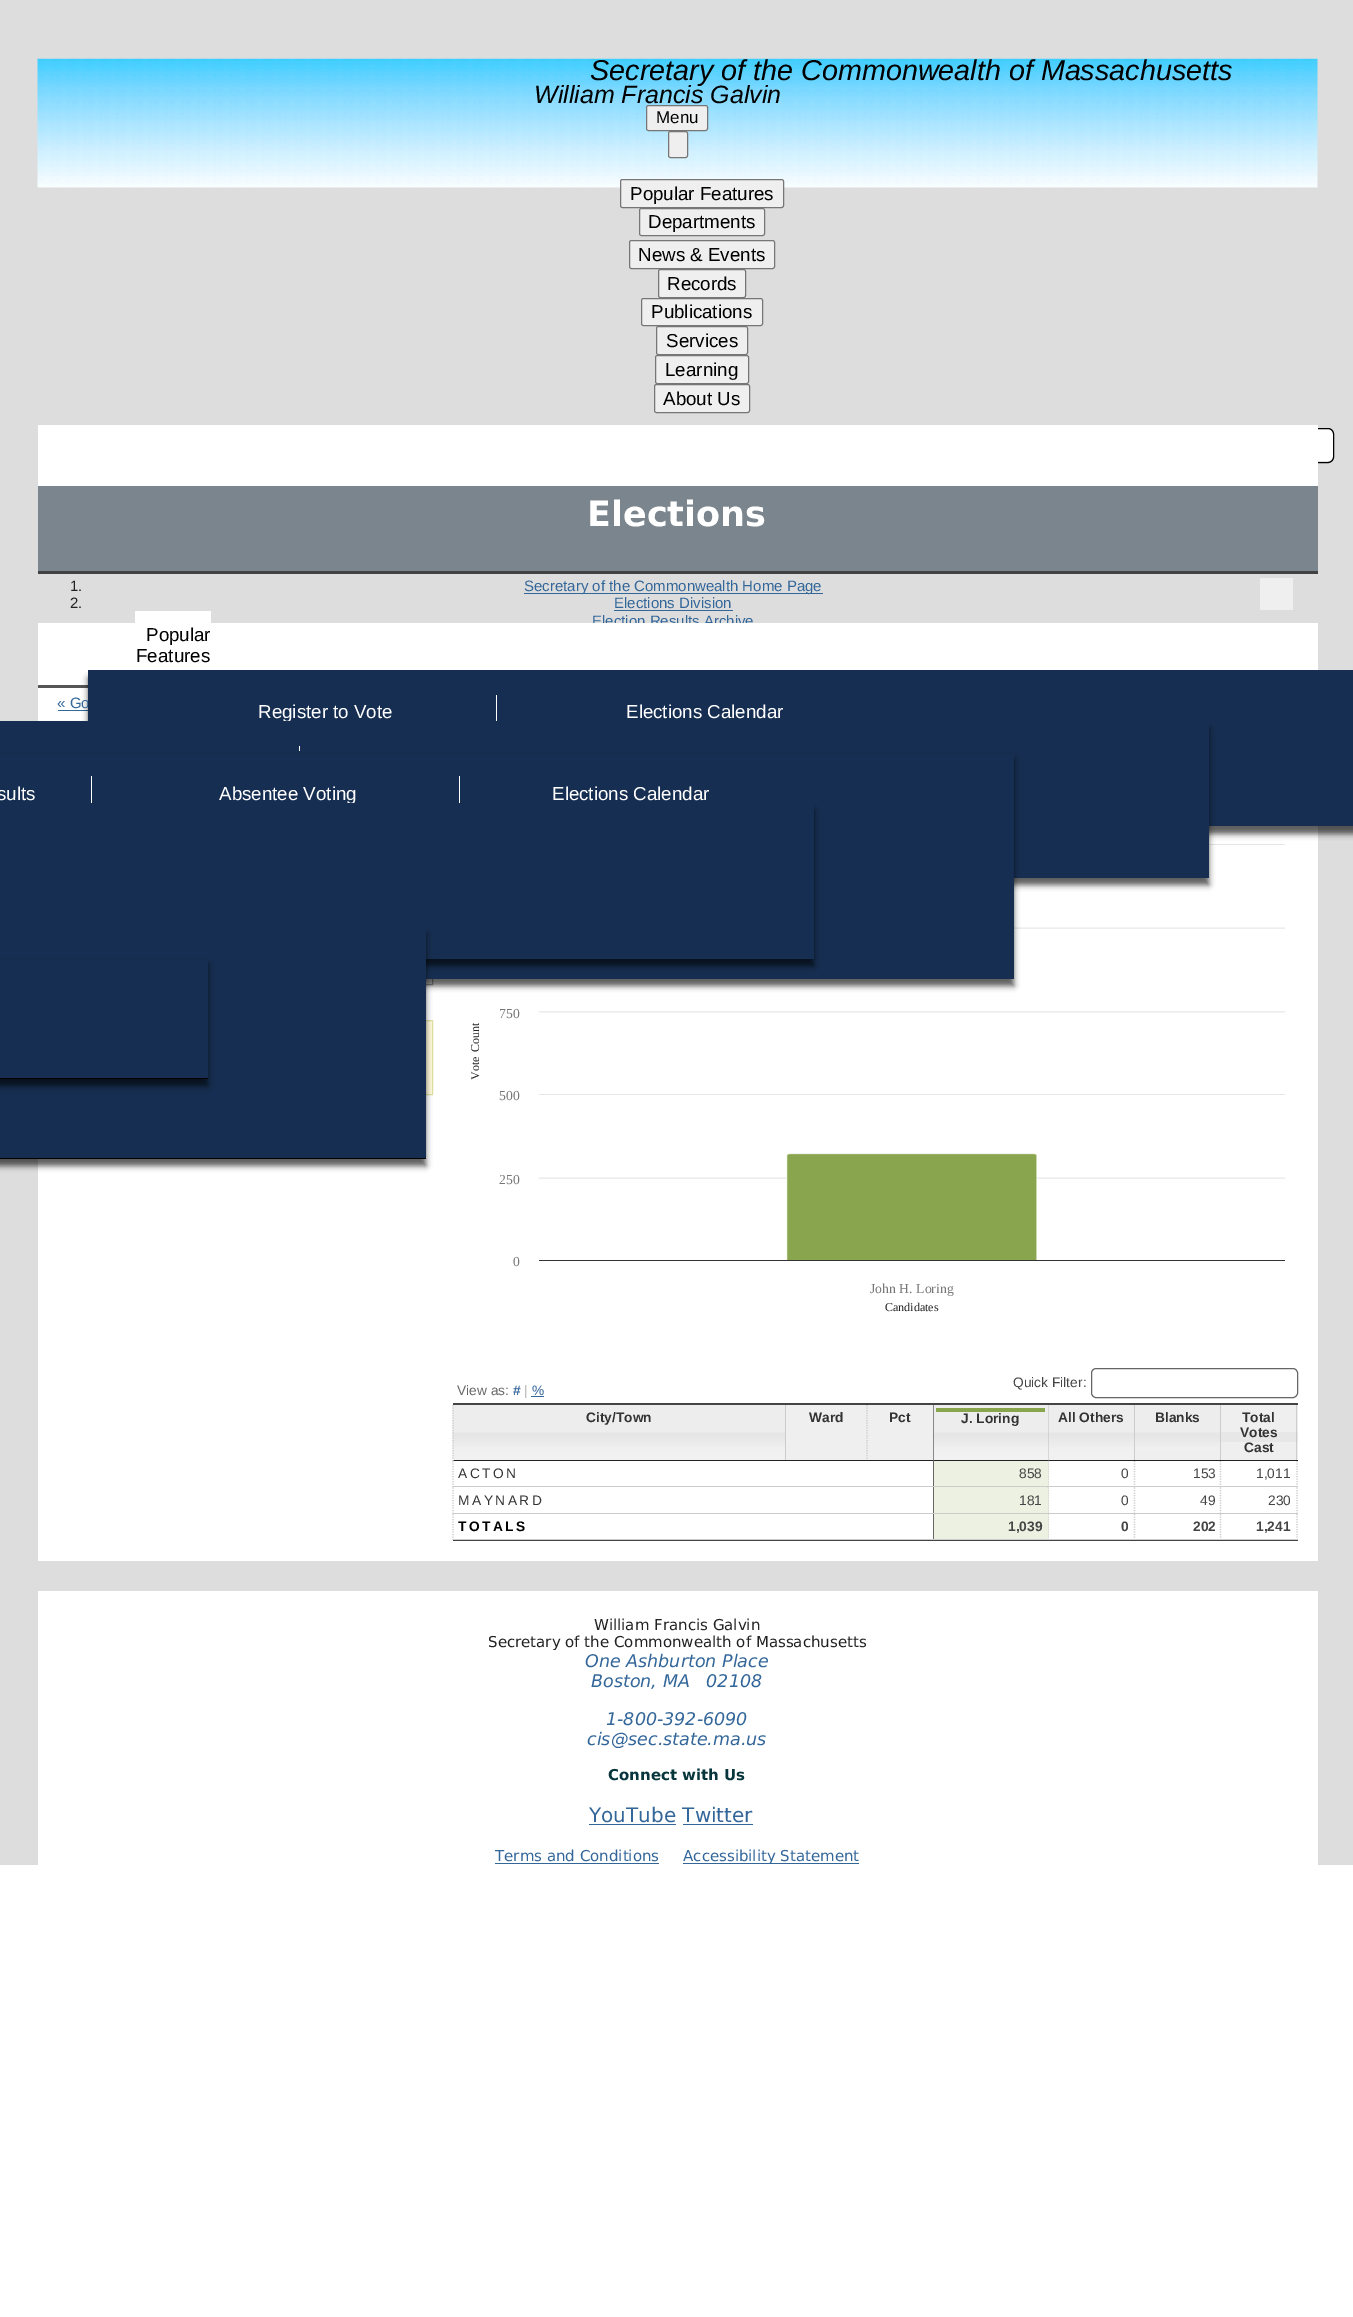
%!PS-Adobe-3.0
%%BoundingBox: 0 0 1353 2317
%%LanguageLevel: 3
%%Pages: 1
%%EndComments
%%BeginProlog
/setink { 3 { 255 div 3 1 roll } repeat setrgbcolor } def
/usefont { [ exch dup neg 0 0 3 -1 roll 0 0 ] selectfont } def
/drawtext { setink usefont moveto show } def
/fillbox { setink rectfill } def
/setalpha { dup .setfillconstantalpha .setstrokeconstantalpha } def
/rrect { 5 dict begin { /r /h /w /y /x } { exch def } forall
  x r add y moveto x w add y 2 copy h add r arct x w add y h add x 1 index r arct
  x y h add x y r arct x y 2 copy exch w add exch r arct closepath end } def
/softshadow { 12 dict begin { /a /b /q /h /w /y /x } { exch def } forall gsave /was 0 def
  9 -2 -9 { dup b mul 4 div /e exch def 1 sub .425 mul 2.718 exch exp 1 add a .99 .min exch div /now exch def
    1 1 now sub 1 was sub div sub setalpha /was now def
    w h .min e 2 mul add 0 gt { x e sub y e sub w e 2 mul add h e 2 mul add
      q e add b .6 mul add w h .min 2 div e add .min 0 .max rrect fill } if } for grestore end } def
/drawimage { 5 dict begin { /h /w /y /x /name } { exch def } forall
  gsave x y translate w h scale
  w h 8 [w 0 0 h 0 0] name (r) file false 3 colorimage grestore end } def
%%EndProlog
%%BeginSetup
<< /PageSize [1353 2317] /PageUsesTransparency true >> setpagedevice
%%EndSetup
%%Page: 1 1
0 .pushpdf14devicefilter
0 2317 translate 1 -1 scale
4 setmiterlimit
0 0 1353 2317 255 255 255 fillbox
0 0 1353 1865 221 221 221 fillbox
(assets/img1.rgb) 37 58 1281 130 drawimage
(Secretary of the Commonwealth of Massachusetts) 590 80 /LiberationSans-Italic 28.75 0 0 0 drawtext
(William Francis Galvin) 534 103 /LiberationSans-Italic 25 0 0 0 drawtext
239 239 239 setink
646.5 105.5 61 25 2 rrect gsave fill grestore
118 118 118 setink
stroke
(Menu) 656 123 /LiberationSans-Regular 17 0 0 0 drawtext
239 239 239 setink
668.5 131.5 19 26 2 rrect gsave fill grestore
118 118 118 setink
stroke
239 239 239 setink
620.5 179.5 163 28 2 rrect gsave fill grestore
118 118 118 setink
stroke
(Popular Features) 630 200 /LiberationSans-Regular 18.75 0 0 0 drawtext
239 239 239 setink
639.5 208.5 125 27 2 rrect gsave fill grestore
118 118 118 setink
stroke
(Departments) 648 228 /LiberationSans-Regular 18.75 0 0 0 drawtext
239 239 239 setink
629.5 240.5 145 28 2 rrect gsave fill grestore
118 118 118 setink
stroke
(News & Events) 638 261 /LiberationSans-Regular 18.75 0 0 0 drawtext
239 239 239 setink
658.5 269.5 87 28 2 rrect gsave fill grestore
118 118 118 setink
stroke
(Records) 667 290 /LiberationSans-Regular 18.75 0 0 0 drawtext
239 239 239 setink
641.5 298.5 121 27 2 rrect gsave fill grestore
118 118 118 setink
stroke
(Publications) 651 318 /LiberationSans-Regular 18.75 0 0 0 drawtext
239 239 239 setink
656.5 326.5 91 28 2 rrect gsave fill grestore
118 118 118 setink
stroke
(Services) 666 347 /LiberationSans-Regular 18.75 0 0 0 drawtext
239 239 239 setink
655.5 355.5 93 28 2 rrect gsave fill grestore
118 118 118 setink
stroke
(Learning) 665 376 /LiberationSans-Regular 18.75 0 0 0 drawtext
239 239 239 setink
654.5 384.5 95 28 2 rrect gsave fill grestore
118 118 118 setink
stroke
(About Us) 663 405 /LiberationSans-Regular 18.75 0 0 0 drawtext
255 255 255 setink
1046 429 287 32 5 rrect fill
0 0 0 setink
1045.5 428.5 288 34 5.5 rrect stroke
38 486 1280 85 123 133 142 fillbox
38 571 1280 3 66 66 66 fillbox
(Elections) 587 526 /DejaVuSans-Bold 35 255 255 255 drawtext
(1.) 70 591 /LiberationSans-Regular 15 34 34 34 drawtext
524 593 299 1 51 102 153 fillbox
(Secretary of the Commonwealth Home Page) 524 591 /LiberationSans-Regular 15 51 102 153 drawtext
(2.) 70 608 /LiberationSans-Regular 15 34 34 34 drawtext
(Elections Division) 614 608 /LiberationSans-Regular 15 51 102 153 drawtext
614 610 119 1 51 102 153 fillbox
(Election Results Archive) 592 626 /LiberationSans-Regular 15 51 102 153 drawtext
38 425 1280 61 255 255 255 fillbox
1260 578 33 32 239 239 239 fillbox
38 623 1280 62 255 255 255 fillbox
38 685 50 3 86 86 86 fillbox
(Popular) 146 641 /LiberationSans-Regular 18.75 0 0 0 drawtext
135 611 76 12 255 255 255 fillbox
(Features) 136 662 /LiberationSans-Regular 18.75 0 0 0 drawtext
38 688 1280 873 255 255 255 fillbox
58 710 30 1 51 102 153 fillbox
0 0 0 setink
88 678 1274 156 0 3 0.64 softshadow
(« Go) 57 708 /LiberationSans-Regular 15 51 102 153 drawtext
88 670 1265 156 22 46 81 fillbox
496 695 1 26 255 255 255 fillbox
(Register to Vote) 258 718 /LiberationSans-Regular 18.75 255 255 255 drawtext
(Elections Calendar) 626 718 /LiberationSans-Regular 18.75 255 255 255 drawtext
170 170 170 setink
58.5 893.5 374 91 rectstroke
(assets/img2.rgb) 538 844 747 417 drawimage
0 0 0 setink
-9 729 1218 156 0 3 0.64 softshadow
0 721 1209 157 22 46 81 fillbox
299 746 1 5 255 255 255 fillbox
0 0 0 setink
-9 759 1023 227 0 3 0.64 softshadow
0 754 1014 225 22 46 81 fillbox
91 776 1 27 255 255 255 fillbox
(sults) -3 800 /LiberationSans-Regular 18.75 255 255 255 drawtext
459 776 1 27 255 255 255 fillbox
(Absentee Voting) 219 800 /LiberationSans-Regular 18.75 255 255 255 drawtext
(Elections Calendar) 552 800 /LiberationSans-Regular 18.75 255 255 255 drawtext
0 0 0 setink
-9 810 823 156 0 3 0.64 softshadow
0 803 814 156 22 46 81 fillbox
426 1021 6 73 255 250 218 fillbox
223 224 160 setink
58.5 1020.5 374 74 rectstroke
0 0 0 setink
-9 934 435 232 0 3 0.64 softshadow
0 929 426 229 22 46 81 fillbox
0 1158 426 1 0 0 0 fillbox
-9 964 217 122 0 3 0.64 softshadow
0 959 208 119 22 46 81 fillbox
0 1078 208 1 0 0 0 fillbox
(750) 499 1018 /LiberationSerif-Regular 13.75 119 119 119 drawtext
/LiberationSerif-Regular 12 usefont
34 34 34 setink
gsave 479 1080 translate -90 rotate 0 0 moveto 2 0 32 (Vote Count) widthshow grestore
(500) 499 1100 /LiberationSerif-Regular 13.75 119 119 119 drawtext
(250) 499 1184 /LiberationSerif-Regular 13.75 119 119 119 drawtext
(0) 513 1266 /LiberationSerif-Regular 13.75 119 119 119 drawtext
(John H. Loring) 870 1293 /LiberationSerif-Regular 13.75 119 119 119 drawtext
(Candidates) 885 1311 /LiberationSerif-Regular 12 34 34 34 drawtext
(Quick Filter:) 1013 1387 /LiberationSans-Regular 13.75 69 69 69 drawtext
102 102 102 setink
1091.5 1368.5 206 29 4.5 rrect stroke
(View as:) 457 1395 /LiberationSans-Regular 13.75 102 102 102 drawtext
(#) 513 1395 /LiberationSans-Bold 13.75 51 102 153 drawtext
(|) 524 1395 /LiberationSans-Regular 13.75 170 170 170 drawtext
(%) 532 1395 /LiberationSans-Regular 13.75 51 102 153 drawtext
531 1396 13 1 51 102 153 fillbox
453 1403 845 2 68 68 68 fillbox
453 1540 845 1 68 68 68 fillbox
(assets/img3.rgb) 452 1405 333 56 drawimage
785 1405 1 56 204 204 204 fillbox
453 1460 333 1 34 34 34 fillbox
204 204 204 setink
1.2 setlinewidth
[1.25 1.25] 0 setdash
453 1405 moveto 453 1461 lineto stroke
(City/Town) 586 1422 /LiberationSans-Bold 13.75 51 51 51 drawtext
786 1405 147 55 239 239 239 fillbox
204 204 204 setink
867 1405 moveto 867 1461 lineto stroke
786 1460 82 1 34 34 34 fillbox
(Ward) 809 1422 /LiberationSans-Bold 13.75 51 51 51 drawtext
933 1405 1 135 102 102 102 fillbox
868 1460 66 1 34 34 34 fillbox
(Pct) 889 1422 /LiberationSans-Bold 13.75 51 51 51 drawtext
(assets/img4.rgb) 933 1405 115 56 drawimage
1048 1405 1 56 204 204 204 fillbox
934 1460 115 1 34 34 34 fillbox
936 1408 109 4 137 165 78 fillbox
(J. Loring) 961 1423 /LiberationSans-Bold 13.75 51 51 51 drawtext
(assets/img5.rgb) 1048 1405 86 56 drawimage
1134 1405 1 56 204 204 204 fillbox
1049 1460 86 1 34 34 34 fillbox
(All Others) 1058 1422 /LiberationSans-Bold 13.75 51 51 51 drawtext
1135 1451 85 9 239 239 239 fillbox
(assets/img6.rgb) 1135 1405 85 46 drawimage
1220 1405 1 56 204 204 204 fillbox
1135 1460 86 1 34 34 34 fillbox
(Blanks) 1155 1422 /LiberationSans-Bold 13.75 51 51 51 drawtext
1221 1405 77 55 239 239 239 fillbox
1221 1432 77 10 231 231 231 fillbox
1296 1405 1 56 204 204 204 fillbox
1221 1460 77 1 34 34 34 fillbox
(Total) 1242 1422 /LiberationSans-Bold 13.75 51 51 51 drawtext
(Votes) 1240 1437 /LiberationSans-Bold 13.75 51 51 51 drawtext
(Cast) 1244 1452 /LiberationSans-Bold 13.75 51 51 51 drawtext
453 1486 481 1 204 204 204 fillbox
453 1461 moveto 453 1487.5 lineto stroke
/LiberationSans-Regular 13.75 usefont
51 51 51 setink
458 1478 moveto 2.5 0 (ACTON) ashow
934 1461 115 27 236 241 226 fillbox
204 204 204 setink
1048 1461 moveto 1048 1487.5 lineto stroke
934 1486 115 1 204 204 204 fillbox
1047 1461 1 24 236 241 226 fillbox
(858) 1019 1478 /LiberationSans-Regular 13.75 69 69 69 drawtext
204 204 204 setink
1134.5 1461 moveto 1134.5 1487.5 lineto stroke
1049 1486 86 1 204 204 204 fillbox
(0) 1121 1478 /LiberationSans-Regular 13.75 69 69 69 drawtext
204 204 204 setink
1220.5 1461 moveto 1220.5 1487.5 lineto stroke
1135 1486 86 1 204 204 204 fillbox
(153) 1193 1478 /LiberationSans-Regular 13.75 69 69 69 drawtext
204 204 204 setink
1297 1461 moveto 1297 1487.5 lineto stroke
1221 1486 77 1 204 204 204 fillbox
(1,011) 1256 1478 /LiberationSans-Regular 13.75 69 69 69 drawtext
453 1513 481 1 204 204 204 fillbox
453 1487.5 moveto 453 1514 lineto stroke
51 51 51 setink
458 1505 moveto 2.5 0 (MAYNARD) ashow
1048 1488 1 25 236 241 226 fillbox
204 204 204 setink
1048 1487.5 moveto 1048 1514 lineto stroke
934 1513 115 1 204 204 204 fillbox
934 1488 114 25 236 241 226 fillbox
(181) 1019 1505 /LiberationSans-Regular 13.75 69 69 69 drawtext
204 204 204 setink
1134.5 1487.5 moveto 1134.5 1514 lineto stroke
1049 1513 86 1 204 204 204 fillbox
(0) 1121 1505 /LiberationSans-Regular 13.75 69 69 69 drawtext
204 204 204 setink
1220.5 1487.5 moveto 1220.5 1514 lineto stroke
1135 1513 86 1 204 204 204 fillbox
(49) 1200 1505 /LiberationSans-Regular 13.75 69 69 69 drawtext
204 204 204 setink
1297 1487.5 moveto 1297 1514 lineto stroke
1221 1513 77 1 204 204 204 fillbox
(230) 1268 1505 /LiberationSans-Regular 13.75 69 69 69 drawtext
453 1539 481 1 204 204 204 fillbox
453 1514 moveto 453 1540 lineto stroke
/LiberationSans-Bold 13.75 usefont
0 0 0 setink
458 1531 moveto 2.5 0 (TOTALS) ashow
1048 1514 1 25 236 241 226 fillbox
204 204 204 setink
1048 1514 moveto 1048 1540 lineto stroke
934 1539 115 1 204 204 204 fillbox
934 1514 114 25 236 241 226 fillbox
(1,039) 1008 1531 /LiberationSans-Bold 13.75 69 69 69 drawtext
204 204 204 setink
1134.5 1514 moveto 1134.5 1540 lineto stroke
1049 1539 86 1 204 204 204 fillbox
(0) 1121 1531 /LiberationSans-Bold 13.75 69 69 69 drawtext
204 204 204 setink
1220.5 1514 moveto 1220.5 1540 lineto stroke
1135 1539 86 1 204 204 204 fillbox
(202) 1193 1531 /LiberationSans-Bold 13.75 69 69 69 drawtext
204 204 204 setink
1297 1514 moveto 1297 1540 lineto stroke
1221 1539 77 1 204 204 204 fillbox
(1,241) 1256 1531 /LiberationSans-Bold 13.75 69 69 69 drawtext
38 1591 1280 274 255 255 255 fillbox
(William Francis Galvin) 594 1630 /DejaVuSans-Regular 15 34 34 34 drawtext
(Secretary of the Commonwealth of Massachusetts) 488 1647 /DejaVuSans-Regular 15 34 34 34 drawtext
(One Ashburton Place) 585 1667 /DejaVuSans-Italic 17.5 51 102 153 drawtext
(Boston, MA   02108) 591 1687 /DejaVuSans-Italic 17.5 51 102 153 drawtext
(1-800-392-6090) 606 1725 /DejaVuSans-Italic 17.5 51 102 153 drawtext
(cis@sec.state.ma.us) 587 1745 /DejaVuSans-Italic 17.5 51 102 153 drawtext
(Connect with Us) 608 1780 /DejaVuSans-Bold 15 6 53 60 drawtext
(YouTube Twitter) 589 1822 /DejaVuSans-Regular 20 51 102 153 drawtext
589 1824 87 1 51 102 153 fillbox
683 1824 70 1 51 102 153 fillbox
(Terms and Conditions) 495 1861 /DejaVuSans-Regular 15 51 102 153 drawtext
495 1863 164 1 51 102 153 fillbox
683 1863 176 1 51 102 153 fillbox
(Accessibility Statement) 683 1861 /DejaVuSans-Regular 15 51 102 153 drawtext
.poppdf14devicefilter showpage
%%EOF
